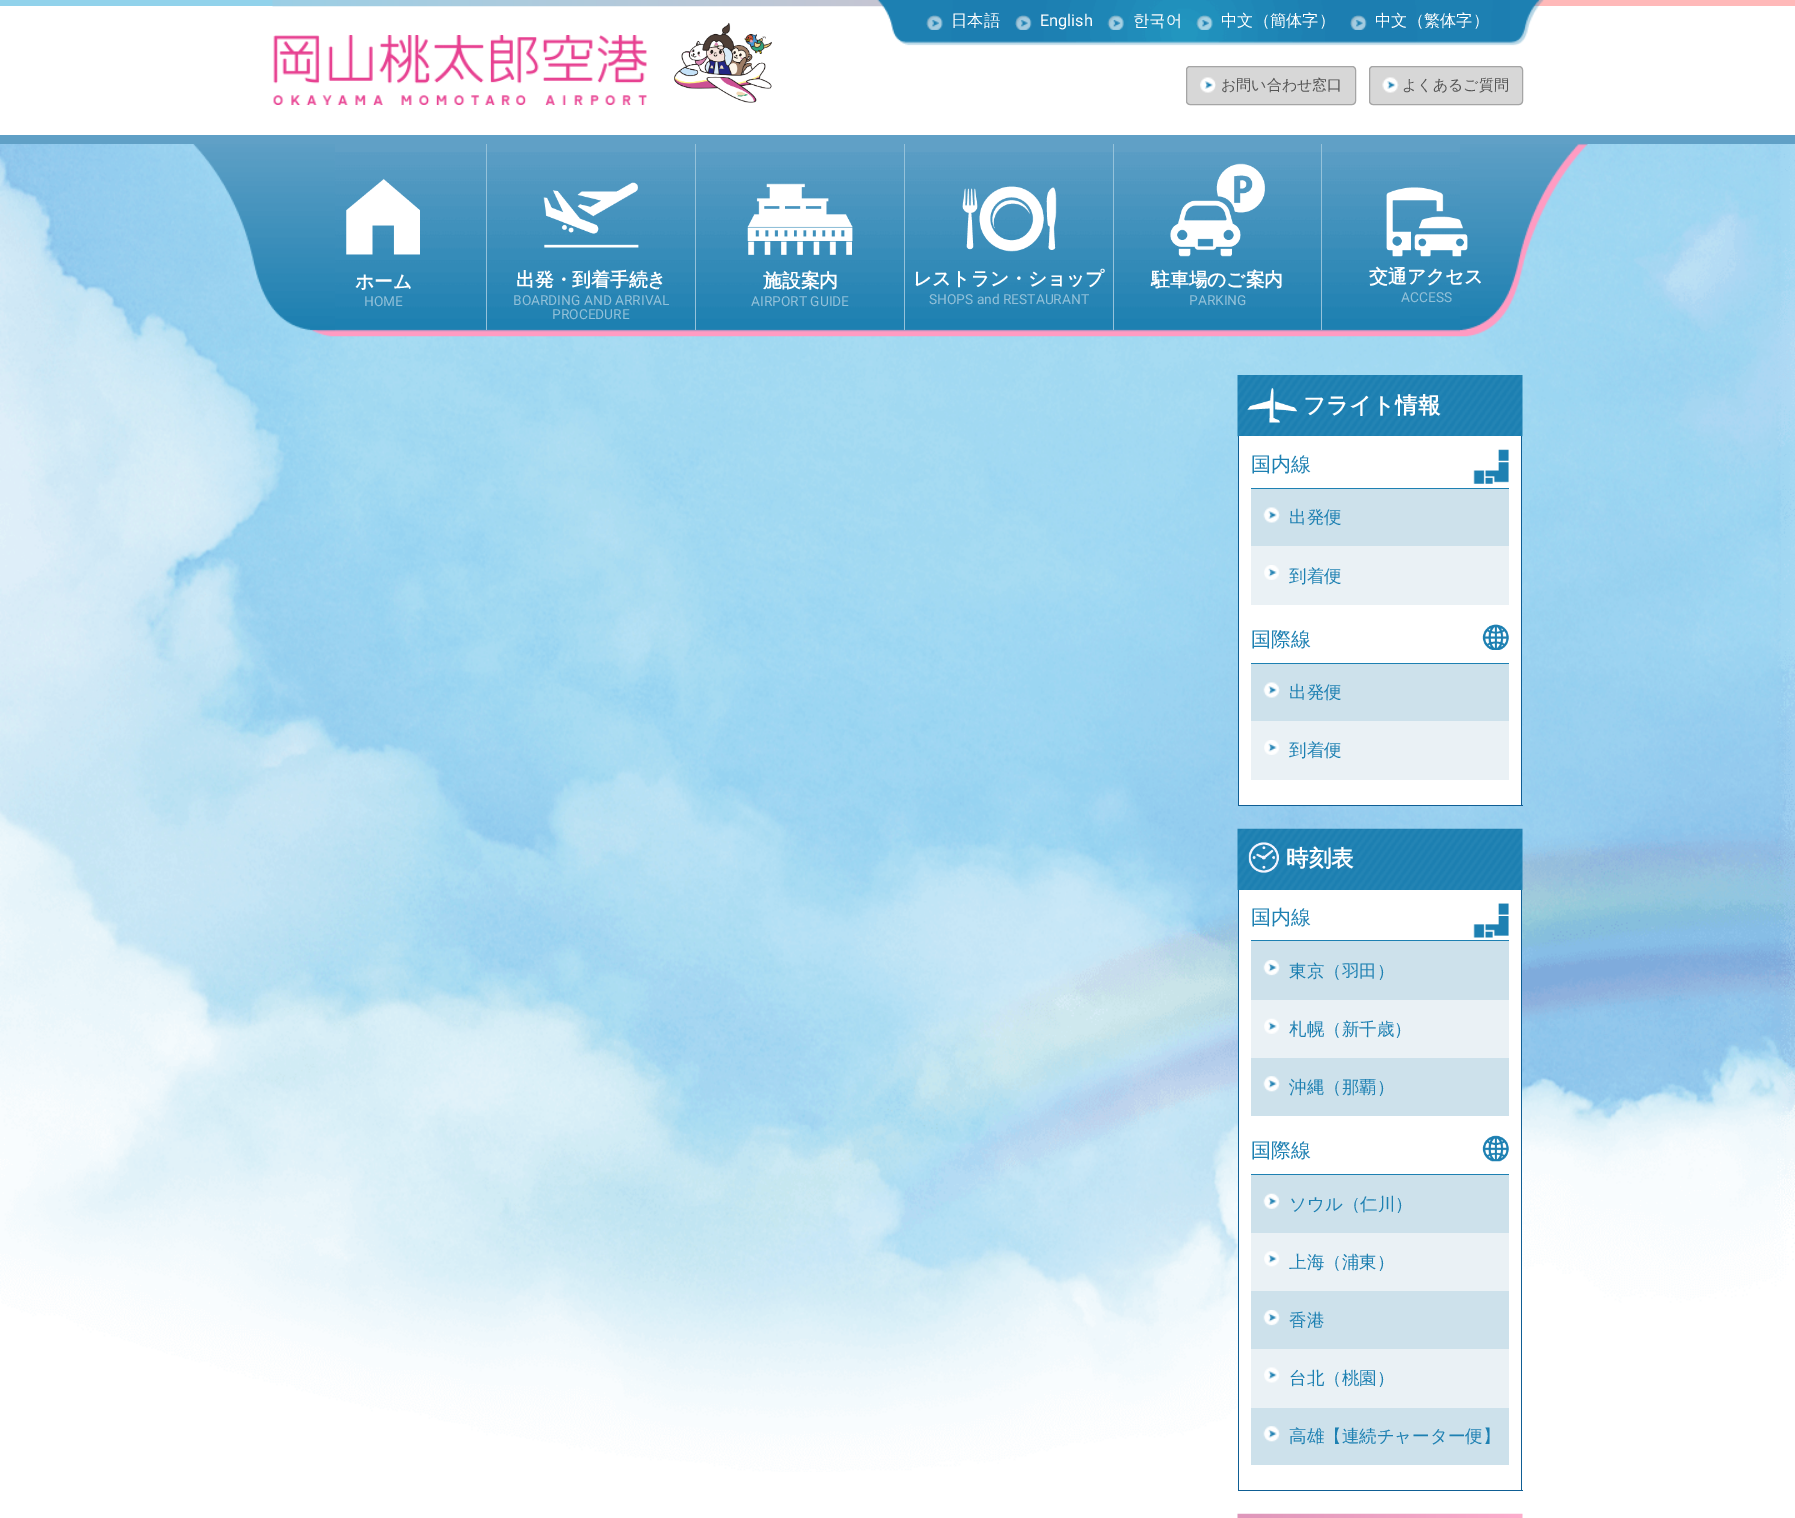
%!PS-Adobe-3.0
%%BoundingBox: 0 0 1795 1518
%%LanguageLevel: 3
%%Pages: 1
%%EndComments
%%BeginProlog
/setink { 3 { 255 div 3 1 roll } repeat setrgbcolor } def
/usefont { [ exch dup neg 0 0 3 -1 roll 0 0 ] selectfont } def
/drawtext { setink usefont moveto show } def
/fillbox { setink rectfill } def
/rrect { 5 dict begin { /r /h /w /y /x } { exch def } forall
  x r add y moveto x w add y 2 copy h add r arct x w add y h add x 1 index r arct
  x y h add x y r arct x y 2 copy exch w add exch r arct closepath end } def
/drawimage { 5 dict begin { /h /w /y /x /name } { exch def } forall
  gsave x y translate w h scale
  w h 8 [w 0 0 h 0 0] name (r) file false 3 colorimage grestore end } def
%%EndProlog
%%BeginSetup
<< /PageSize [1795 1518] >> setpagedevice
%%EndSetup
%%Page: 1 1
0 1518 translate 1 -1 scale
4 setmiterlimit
0 0 1795 1518 255 255 255 fillbox
0 0 273 6 145 210 235 fillbox
1533 0 262 6 255 185 185 fillbox
(assets/img1.rgb) 272 0 614 7 drawimage
(assets/img2.rgb) 273 35 374 70 drawimage
(assets/img3.rgb) 674 22 98 81 drawimage
(assets/img4.rgb) 877 0 33 46 drawimage
(assets/img5.rgb) 910 0 600 46 drawimage
(assets/img6.rgb) 926 15 17 15 drawimage
(日本語) 951 26 /WenQuanYiZenHei-Medium 16.25 255 255 255 drawtext
(assets/img7.rgb) 1015 15 17 15 drawimage
(English) 1040 26 /Roboto-Regular 16.25 255 255 255 drawtext
(assets/img8.rgb) 1107 15 17 15 drawimage
(한국어) 1133 26 /WenQuanYiZenHei-Medium 16.25 255 255 255 drawtext
(assets/img9.rgb) 1196 15 17 15 drawimage
(中文（簡体字）) 1221 26 /WenQuanYiZenHei-Medium 16.25 255 255 255 drawtext
(assets/img7.rgb) 1350 15 17 15 drawimage
(中文（繁体字）) 1375 26 /WenQuanYiZenHei-Medium 16.25 255 255 255 drawtext
(assets/img10.rgb) 1510 0 34 46 drawimage
215 215 215 setink
1186 66 170 39 4 rrect fill
(assets/img11.rgb) 1200 77 16 16 drawimage
165 165 165 setink
1186.5 66.5 169 38 3.5 rrect stroke
(お問い合わせ窓口) 1221 90 /WenQuanYiZenHei-Medium 15 84 84 84 drawtext
215 215 215 setink
1369 66 154 39 4 rrect fill
(assets/img12.rgb) 1382 77 17 16 drawimage
165 165 165 setink
1369.5 66.5 153 38 3.5 rrect stroke
(よくあるご質問) 1402 90 /WenQuanYiZenHei-Medium 15 84 84 84 drawtext
(assets/img13.rgb) 0 144 1795 1328 drawimage
0 135 1795 9 96 160 198 fillbox
335 144 1125 8 96 160 198 fillbox
(assets/img14.rgb) 335 152 1125 185 drawimage
(assets/img15.rgb) 193 144 142 193 drawimage
(assets/img16.rgb) 1460 143 128 194 drawimage
(assets/img17.rgb) 346 178 74 77 drawimage
(ホーム) 355 288 /WenQuanYiZenHei-Bold 18.75 255 255 255 drawtext
(HOME) 364 306 /Roboto-Regular 13.75 146 193 217 drawtext
486 144 1 186 149 194 218 fillbox
(assets/img18.rgb) 543 182 96 66 drawimage
(出発・到着手続き) 516 286 /WenQuanYiZenHei-Bold 18.75 255 255 255 drawtext
(BOARDING AND ARRIVAL) 513 305 /Roboto-Regular 13.75 146 193 217 drawtext
(PROCEDURE) 552 319 /Roboto-Regular 13.75 146 193 217 drawtext
695 144 1 186 149 194 218 fillbox
(assets/img19.rgb) 747 183 106 72 drawimage
(施設案内) 763 287 /WenQuanYiZenHei-Bold 18.75 255 255 255 drawtext
(AIRPORT GUIDE) 751 306 /Roboto-Regular 13.75 146 193 217 drawtext
904 144 1 186 149 194 218 fillbox
(assets/img20.rgb) 962 186 95 66 drawimage
(レストラン・ショップ) 913 285 /WenQuanYiZenHei-Bold 18.75 255 255 255 drawtext
(SHOPS and RESTAURANT) 929 304 /Roboto-Regular 13.75 146 193 217 drawtext
1113 144 1 186 149 194 218 fillbox
(assets/img21.rgb) 1170 163 95 94 drawimage
(駐車場のご案内) 1151 286 /WenQuanYiZenHei-Bold 18.75 255 255 255 drawtext
(PARKING) 1189 305 /Roboto-Regular 13.75 146 193 217 drawtext
1321 144 1 186 149 194 218 fillbox
(assets/img22.rgb) 1386 187 82 70 drawimage
(交通アクセス) 1369 283 /WenQuanYiZenHei-Bold 18.75 255 255 255 drawtext
(ACCESS) 1401 302 /Roboto-Regular 13.75 146 193 217 drawtext
(assets/img23.rgb) 1237 375 286 62 drawimage
(assets/img24.rgb) 1247 388 51 35 drawimage
(フライト情報) 1303 413 /WenQuanYiZenHei-Bold 22.5 255 255 255 drawtext
1239 436 282 369 255 255 255 fillbox
1521 436 1 370 15 94 148 fillbox
1238 805 285 1 15 94 148 fillbox
1238 436 1 370 15 94 148 fillbox
1251 488 258 1 29 128 178 fillbox
(国内線) 1251 471 /WenQuanYiZenHei-Medium 20 29 128 178 drawtext
(assets/img25.rgb) 1473 449 36 35 drawimage
1251 489 258 57 205 225 235 fillbox
(assets/img26.rgb) 1263 507 17 16 drawimage
(出発便) 1289 523 /WenQuanYiZenHei-Medium 17.5 29 128 178 drawtext
1251 546 258 59 234 241 245 fillbox
(assets/img27.rgb) 1264 565 16 15 drawimage
(到着便) 1289 582 /WenQuanYiZenHei-Medium 17.5 29 128 178 drawtext
1251 663 258 1 29 128 178 fillbox
(国際線) 1251 646 /WenQuanYiZenHei-Medium 20 29 128 178 drawtext
(assets/img28.rgb) 1482 624 27 26 drawimage
1251 664 258 57 205 225 235 fillbox
(assets/img26.rgb) 1263 682 17 16 drawimage
(出発便) 1289 698 /WenQuanYiZenHei-Medium 17.5 29 128 178 drawtext
1251 721 258 59 234 241 245 fillbox
(assets/img27.rgb) 1264 740 16 15 drawimage
(到着便) 1289 756 /WenQuanYiZenHei-Medium 17.5 29 128 178 drawtext
(assets/img29.rgb) 1237 828 286 62 drawimage
(assets/img30.rgb) 1248 842 31 31 drawimage
(時刻表) 1286 866 /WenQuanYiZenHei-Bold 22.5 255 255 255 drawtext
1239 890 282 515 255 255 255 fillbox
1521 890 1 601 15 94 148 fillbox
1238 1490 285 1 15 94 148 fillbox
1238 890 1 601 15 94 148 fillbox
1251 940 258 1 29 128 178 fillbox
(国内線) 1251 924 /WenQuanYiZenHei-Medium 20 29 128 178 drawtext
(assets/img31.rgb) 1473 903 36 35 drawimage
1251 941 258 59 205 225 235 fillbox
(assets/img32.rgb) 1263 960 17 16 drawimage
(東京（羽田）) 1289 977 /WenQuanYiZenHei-Medium 17.5 29 128 178 drawtext
1251 1000 258 58 234 241 245 fillbox
(assets/img33.rgb) 1264 1018 16 16 drawimage
(札幌（新千歳）) 1289 1035 /WenQuanYiZenHei-Medium 17.5 29 128 178 drawtext
1251 1058 258 58 205 225 235 fillbox
(assets/img34.rgb) 1263 1076 17 16 drawimage
(沖縄（那覇）) 1289 1093 /WenQuanYiZenHei-Medium 17.5 29 128 178 drawtext
1251 1174 258 1 29 128 178 fillbox
(国際線) 1251 1157 /WenQuanYiZenHei-Medium 20 29 128 178 drawtext
(assets/img35.rgb) 1482 1135 27 27 drawimage
1251 1175 258 58 205 225 235 fillbox
(assets/img36.rgb) 1263 1193 17 16 drawimage
(ソウル（仁川）) 1289 1210 /WenQuanYiZenHei-Medium 17.5 29 128 178 drawtext
1251 1233 258 58 234 241 245 fillbox
(assets/img37.rgb) 1264 1251 16 16 drawimage
(上海（浦東）) 1289 1268 /WenQuanYiZenHei-Medium 17.5 29 128 178 drawtext
1251 1291 258 58 205 225 235 fillbox
(assets/img32.rgb) 1263 1310 17 16 drawimage
(香港) 1289 1326 /WenQuanYiZenHei-Medium 17.5 29 128 178 drawtext
1251 1349 258 59 234 241 245 fillbox
(assets/img38.rgb) 1264 1367 16 16 drawimage
(台北（桃園）) 1289 1384 /WenQuanYiZenHei-Medium 17.5 29 128 178 drawtext
1251 1408 258 57 205 225 235 fillbox
(assets/img34.rgb) 1263 1426 17 16 drawimage
(高雄【連続チャーター便】) 1289 1442 /WenQuanYiZenHei-Medium 17.5 29 128 178 drawtext
(assets/img39.rgb) 1237 1513 286 5 drawimage
showpage
%%EOF
